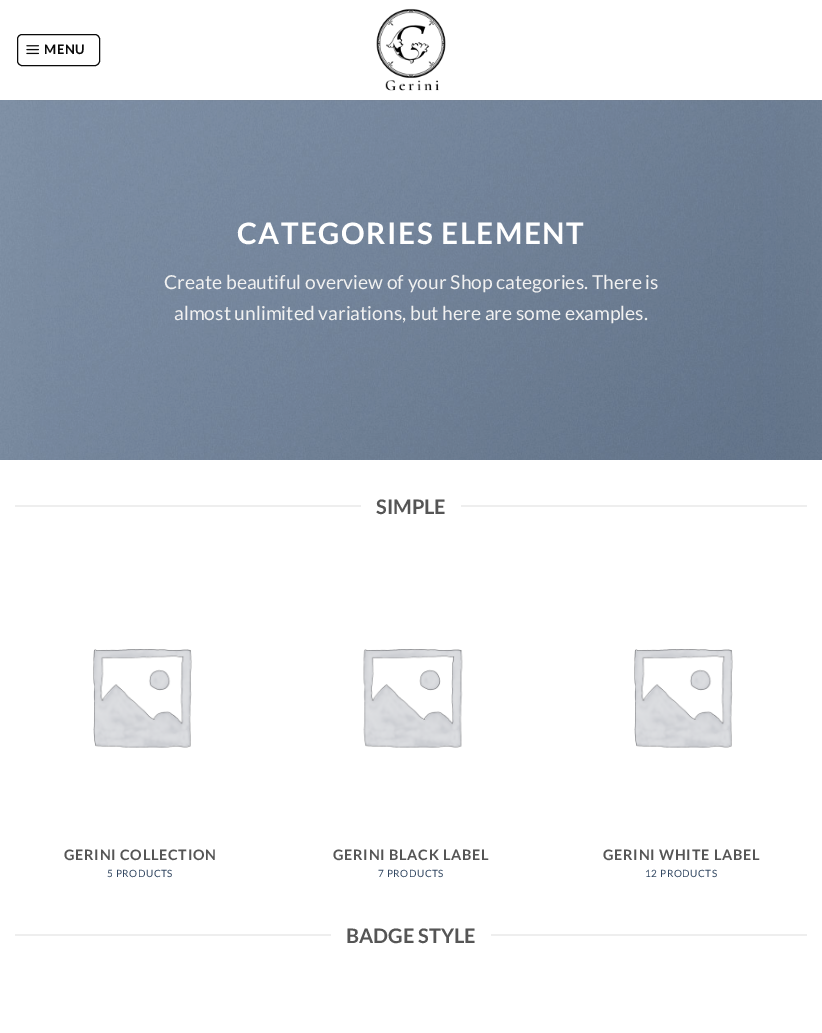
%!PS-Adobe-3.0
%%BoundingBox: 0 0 822 1033
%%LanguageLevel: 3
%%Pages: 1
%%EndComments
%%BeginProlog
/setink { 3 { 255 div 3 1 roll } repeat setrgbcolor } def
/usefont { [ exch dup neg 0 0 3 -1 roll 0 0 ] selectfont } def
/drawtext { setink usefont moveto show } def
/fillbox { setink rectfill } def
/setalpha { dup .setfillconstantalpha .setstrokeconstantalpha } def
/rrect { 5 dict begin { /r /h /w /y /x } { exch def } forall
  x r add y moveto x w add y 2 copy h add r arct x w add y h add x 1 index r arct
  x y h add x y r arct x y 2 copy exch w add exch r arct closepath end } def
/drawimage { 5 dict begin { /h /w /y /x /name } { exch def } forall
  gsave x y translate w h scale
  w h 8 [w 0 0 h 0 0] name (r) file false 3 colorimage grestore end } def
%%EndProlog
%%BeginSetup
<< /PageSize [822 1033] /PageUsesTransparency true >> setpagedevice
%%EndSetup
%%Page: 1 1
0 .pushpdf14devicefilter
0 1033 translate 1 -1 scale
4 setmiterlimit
0 0 822 1033 255 255 255 fillbox
10 10 10 setink
17.5 34.5 82 31 4.5 rrect stroke
(assets/img1.rgb) 26 45 13 10 drawimage
/Lato-Bold 13 usefont
44 54 moveto 0.5 0 (MENU) ashow
(assets/img2.rgb) 376 8 70 83 drawimage
(assets/img3.rgb) 0 100 822 360 drawimage
0.1 setalpha
15 100 792 1 119 119 119 fillbox
/Lato-Bold 29.6 usefont
1 setalpha
255 255 255 setink
237 244 moveto 1.5 0 (CATEGORIES ELEMENT) ashow
(Create beautiful overview of your Shop categories. There is) 164 289 /Lato-Regular 19.25 241 241 241 drawtext
(almost unlimited variations, but here are some examples.) 174 320 /Lato-Regular 19.25 241 241 241 drawtext
15 505 346 2 238 238 238 fillbox
(SIMPLE) 376 514 /Lato-Bold 20 85 85 85 drawtext
461 505 346 2 238 238 238 fillbox
(assets/img4.rgb) 93 649 99 99 drawimage
/Lato-Bold 14.4 usefont
85 85 85 setink
64 860 moveto 0.75 0 (GERINI COLLECTION) ashow
/Lato-Regular 10 usefont
51 72 98 setink
107 877 moveto 0.5 0 (5 PRODUCTS) ashow
(assets/img5.rgb) 363 649 100 99 drawimage
/Lato-Bold 14.4 usefont
85 85 85 setink
333 860 moveto 0.75 0 (GERINI BLACK LABEL) ashow
/Lato-Regular 10 usefont
51 72 98 setink
378 877 moveto 0.5 0 (7 PRODUCTS) ashow
(assets/img4.rgb) 634 649 99 99 drawimage
/Lato-Bold 14.4 usefont
85 85 85 setink
603 860 moveto 0.75 0 (GERINI WHITE LABEL) ashow
/Lato-Regular 10 usefont
51 72 98 setink
645 877 moveto 0.5 0 (12 PRODUCTS) ashow
15 934 316 2 238 238 238 fillbox
(BADGE STYLE) 346 943 /Lato-Bold 20 85 85 85 drawtext
491 934 316 2 238 238 238 fillbox
.poppdf14devicefilter showpage
%%EOF
